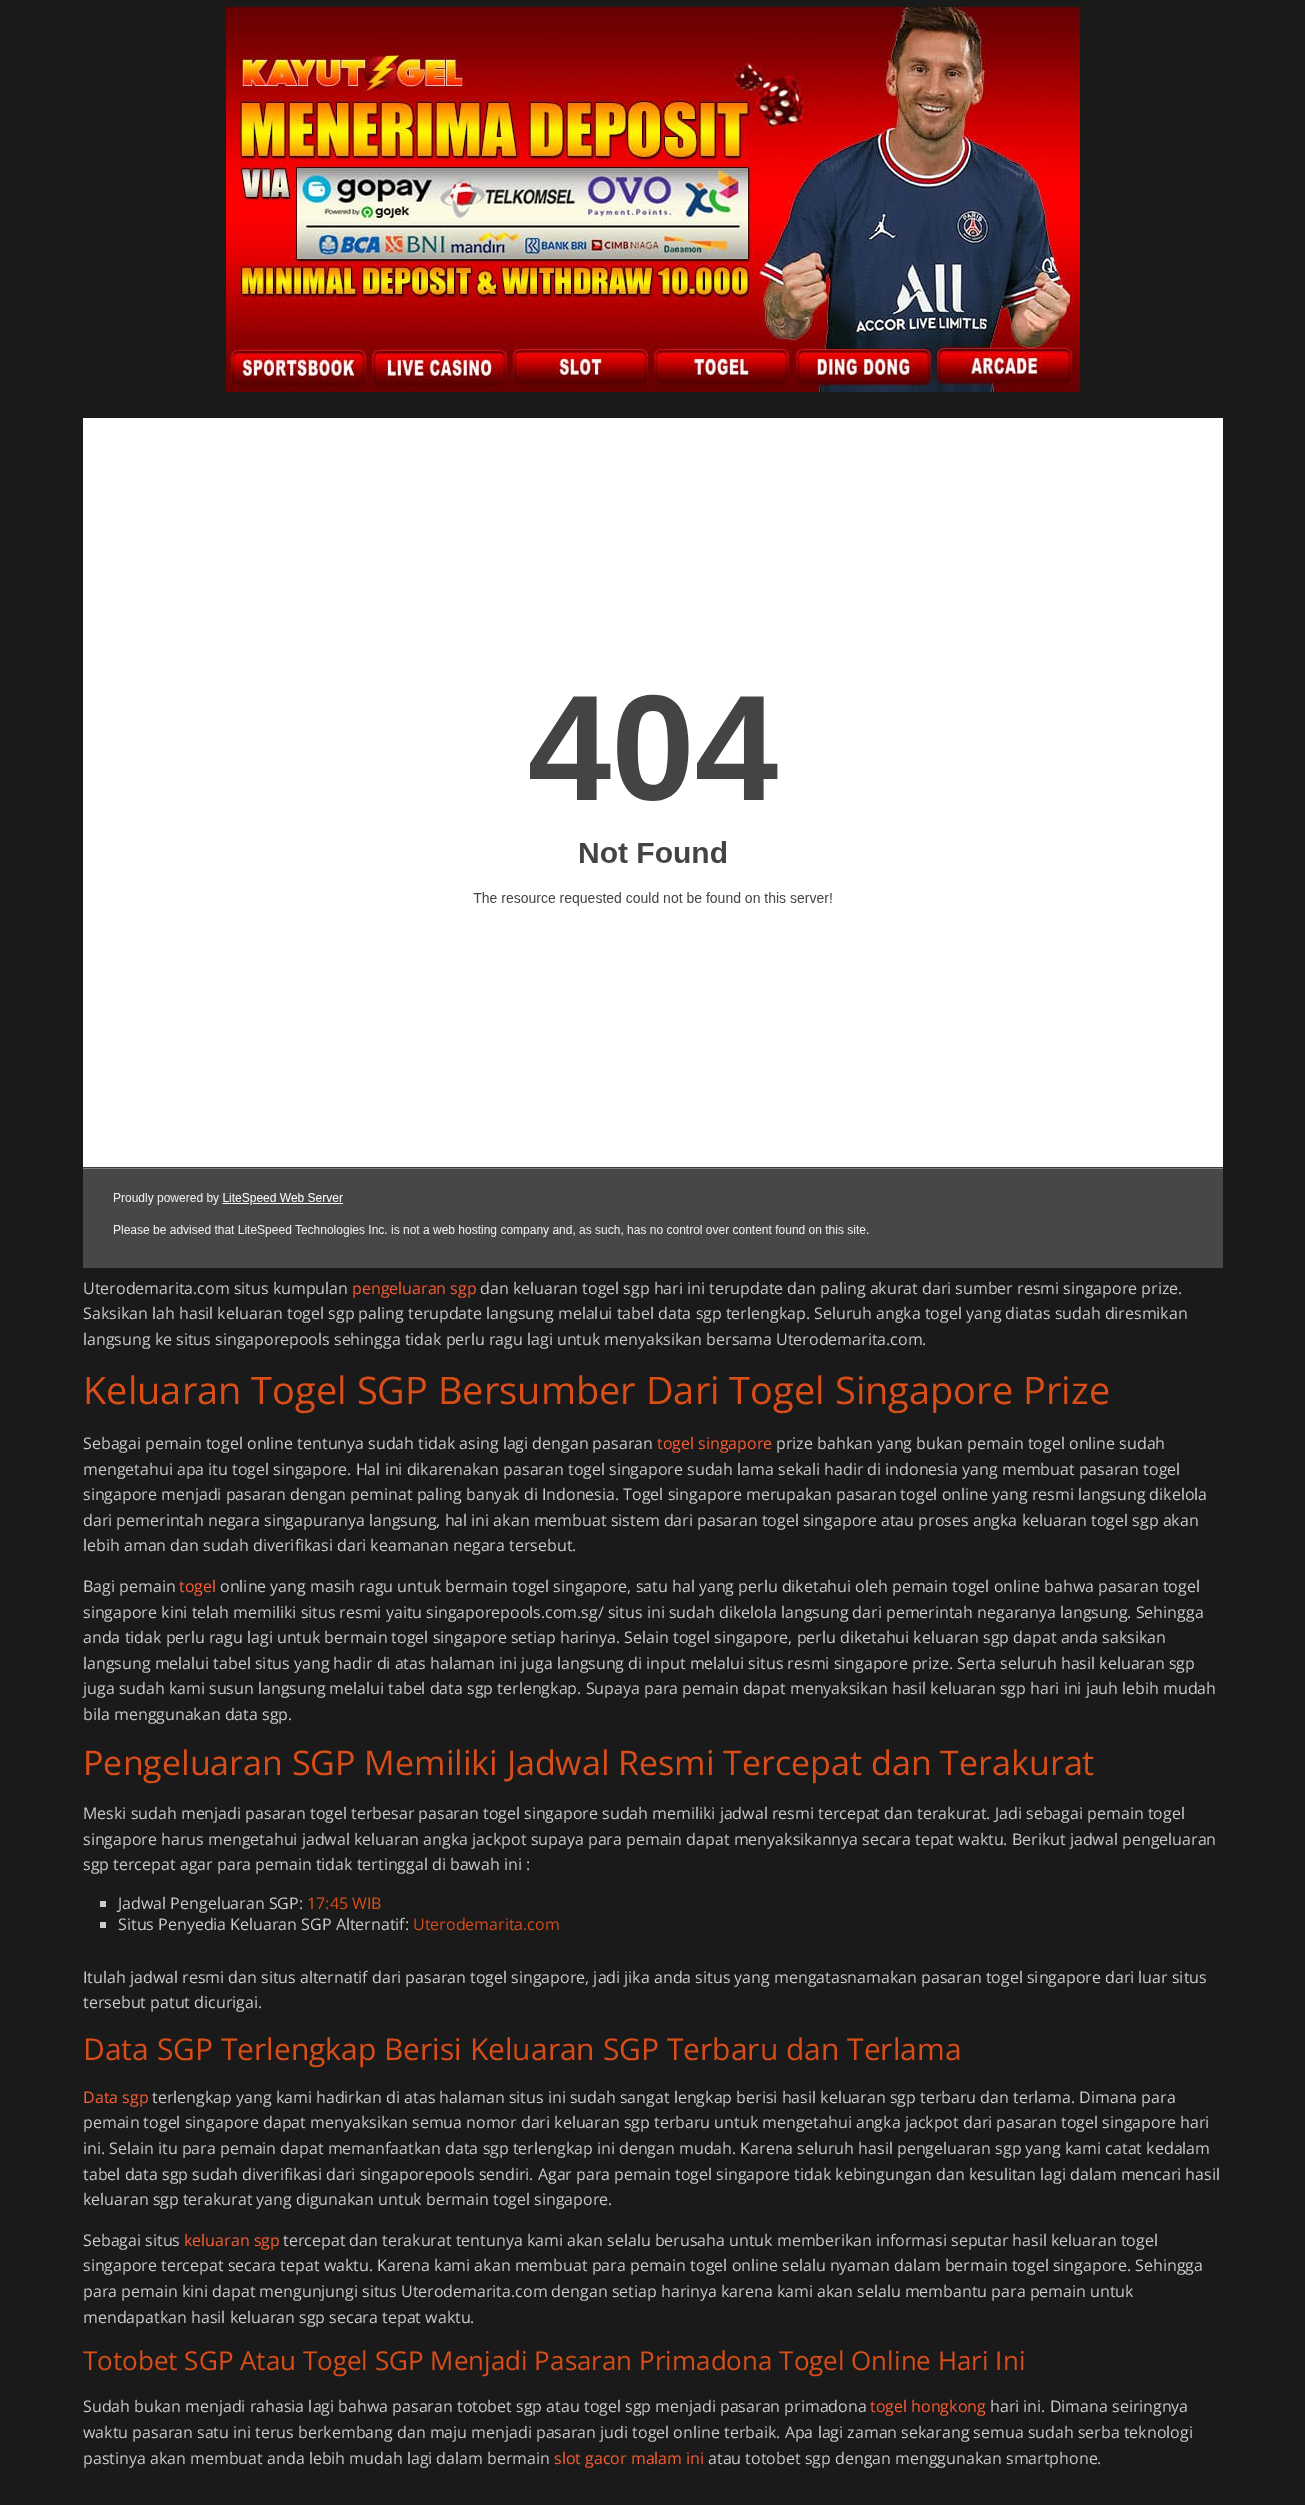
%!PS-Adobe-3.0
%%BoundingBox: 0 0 1305 2505
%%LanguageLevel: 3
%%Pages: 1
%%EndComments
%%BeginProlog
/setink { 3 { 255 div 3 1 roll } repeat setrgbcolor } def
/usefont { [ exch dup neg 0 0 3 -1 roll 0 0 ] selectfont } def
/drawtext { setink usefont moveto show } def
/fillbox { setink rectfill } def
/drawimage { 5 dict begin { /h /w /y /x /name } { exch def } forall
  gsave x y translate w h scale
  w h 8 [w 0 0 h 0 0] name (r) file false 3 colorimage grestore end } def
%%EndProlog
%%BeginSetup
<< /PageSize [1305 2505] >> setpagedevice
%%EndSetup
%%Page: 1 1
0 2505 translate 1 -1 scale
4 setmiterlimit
0 0 1305 2505 26 26 26 fillbox
(assets/img1.rgb) 226 7 854 385 drawimage
(assets/img2.rgb) 83 418 1140 850 drawimage
(Uterodemarita.com situs kumpulan) 83 1294 /OpenSans-Regular 16 204 204 204 drawtext
(pengeluaran sgp) 352 1294 /OpenSans-Regular 16 252 94 50 drawtext
(dan keluaran togel sgp hari ini terupdate dan paling akurat dari sumber resmi singapore prize.) 480 1294 /OpenSans-Regular 16 204 204 204 drawtext
(Saksikan lah hasil keluaran togel sgp paling terupdate langsung melalui tabel data sgp terlengkap. Seluruh angka togel yang diatas sudah diresmikan) 83 1319 /OpenSans-Regular 16 204 204 204 drawtext
(langsung ke situs singaporepools sehingga tidak perlu ragu lagi untuk menyaksikan bersama Uterodemarita.com.) 83 1345 /OpenSans-Regular 16 204 204 204 drawtext
(Keluaran Togel SGP Bersumber Dari Togel Singapore Prize) 83 1404 /OpenSans-Regular 38 217 78 24 drawtext
(Sebagai pemain togel online tentunya sudah tidak asing lagi dengan pasaran) 83 1449 /OpenSans-Regular 16 204 204 204 drawtext
(togel singapore) 657 1449 /OpenSans-Regular 16 252 94 50 drawtext
(prize bahkan yang bukan pemain togel online sudah) 776 1449 /OpenSans-Regular 16 204 204 204 drawtext
(mengetahui apa itu togel singapore. Hal ini dikarenakan pasaran togel singapore sudah lama sekali hadir di indonesia yang membuat pasaran togel) 83 1475 /OpenSans-Regular 16 204 204 204 drawtext
(singapore menjadi pasaran dengan peminat paling banyak di Indonesia. Togel singapore merupakan pasaran togel online yang resmi langsung dikelola) 83 1500 /OpenSans-Regular 16 204 204 204 drawtext
(dari pemerintah negara singapuranya langsung, hal ini akan membuat sistem dari pasaran togel singapore atau proses angka keluaran togel sgp akan) 83 1526 /OpenSans-Regular 16 204 204 204 drawtext
(lebih aman dan sudah diverifikasi dari keamanan negara tersebut.) 83 1551 /OpenSans-Regular 16 204 204 204 drawtext
(Bagi pemain) 83 1592 /OpenSans-Regular 16 204 204 204 drawtext
(togel) 179 1592 /OpenSans-Regular 16 252 94 50 drawtext
(online yang masih ragu untuk bermain togel singapore, satu hal yang perlu diketahui oleh pemain togel online bahwa pasaran togel) 220 1592 /OpenSans-Regular 16 204 204 204 drawtext
(singapore kini telah memiliki situs resmi yaitu singaporepools.com.sg/ situs ini sudah dikelola langsung dari pemerintah negaranya langsung. Sehingga) 83 1618 /OpenSans-Regular 16 204 204 204 drawtext
(anda tidak perlu ragu lagi untuk bermain togel singapore setiap harinya. Selain togel singapore, perlu diketahui keluaran sgp dapat anda saksikan) 83 1643 /OpenSans-Regular 16 204 204 204 drawtext
(langsung melalui tabel situs yang hadir di atas halaman ini juga langsung di input melalui situs resmi singapore prize. Serta seluruh hasil keluaran sgp) 83 1669 /OpenSans-Regular 16 204 204 204 drawtext
(juga sudah kami susun langsung melalui tabel data sgp terlengkap. Supaya para pemain dapat menyaksikan hasil keluaran sgp hari ini jauh lebih mudah) 83 1694 /OpenSans-Regular 16 204 204 204 drawtext
(bila menggunakan data sgp.) 83 1720 /OpenSans-Regular 16 204 204 204 drawtext
(Pengeluaran SGP Memiliki Jadwal Resmi Tercepat dan Terakurat) 83 1775 /OpenSans-Regular 34 217 78 24 drawtext
(Meski sudah menjadi pasaran togel terbesar pasaran togel singapore sudah memiliki jadwal resmi tercepat dan terakurat. Jadi sebagai pemain togel) 83 1819 /OpenSans-Regular 16 204 204 204 drawtext
(singapore harus mengetahui jadwal keluaran angka jackpot supaya para pemain dapat menyaksikannya secara tepat waktu. Berikut jadwal pengeluaran) 83 1845 /OpenSans-Regular 16 204 204 204 drawtext
(sgp tercepat agar para pemain tidak tertinggal di bawah ini :) 83 1870 /OpenSans-Regular 16 204 204 204 drawtext
100 1901 6 6 204 204 204 fillbox
(Jadwal Pengeluaran SGP:) 118 1909 /OpenSans-Regular 16 204 204 204 drawtext
(17:45 WIB) 307 1909 /OpenSans-Regular 16 217 78 24 drawtext
100 1922 6 6 204 204 204 fillbox
(Situs Penyedia Keluaran SGP Alternatif:) 118 1930 /OpenSans-Regular 16 204 204 204 drawtext
(Uterodemarita.com) 413 1930 /OpenSans-Regular 16 217 78 24 drawtext
(Itulah jadwal resmi dan situs alternatif dari pasaran togel singapore, jadi jika anda situs yang mengatasnamakan pasaran togel singapore dari luar situs) 83 1983 /OpenSans-Regular 16 204 204 204 drawtext
(tersebut patut dicurigai.) 83 2008 /OpenSans-Regular 16 204 204 204 drawtext
(Data SGP Terlengkap Berisi Keluaran SGP Terbaru dan Terlama) 83 2060 /OpenSans-Regular 30 217 78 24 drawtext
(Data sgp) 83 2103 /OpenSans-Regular 16 252 94 50 drawtext
(terlengkap yang kami hadirkan di atas halaman situs ini sudah sangat lengkap berisi hasil keluaran sgp terbaru dan terlama. Dimana para) 152 2103 /OpenSans-Regular 16 204 204 204 drawtext
(pemain togel singapore dapat menyaksikan semua nomor dari keluaran sgp terbaru untuk mengetahui angka jackpot dari pasaran togel singapore hari) 83 2128 /OpenSans-Regular 16 204 204 204 drawtext
(ini. Selain itu para pemain dapat memanfaatkan data sgp terlengkap ini dengan mudah. Karena seluruh hasil pengeluaran sgp yang kami catat kedalam) 83 2154 /OpenSans-Regular 16 204 204 204 drawtext
(tabel data sgp sudah diverifikasi dari singaporepools sendiri. Agar para pemain togel singapore tidak kebingungan dan kesulitan lagi dalam mencari hasil) 83 2180 /OpenSans-Regular 16 204 204 204 drawtext
(keluaran sgp terakurat yang digunakan untuk bermain togel singapore.) 83 2205 /OpenSans-Regular 16 204 204 204 drawtext
(Sebagai situs) 83 2246 /OpenSans-Regular 16 204 204 204 drawtext
(keluaran sgp) 184 2246 /OpenSans-Regular 16 252 94 50 drawtext
(tercepat dan terakurat tentunya kami akan selalu berusaha untuk memberikan informasi seputar hasil keluaran togel) 283 2246 /OpenSans-Regular 16 204 204 204 drawtext
(singapore tercepat secara tepat waktu. Karena kami akan membuat para pemain togel online selalu nyaman dalam bermain togel singapore. Sehingga) 83 2271 /OpenSans-Regular 16 204 204 204 drawtext
(para pemain kini dapat mengunjungi situs Uterodemarita.com dengan setiap harinya karena kami akan selalu membantu para pemain untuk) 83 2297 /OpenSans-Regular 16 204 204 204 drawtext
(mendapatkan hasil keluaran sgp secara tepat waktu.) 83 2323 /OpenSans-Regular 16 204 204 204 drawtext
(Totobet SGP Atau Togel SGP Menjadi Pasaran Primadona Togel Online Hari Ini) 83 2370 /OpenSans-Regular 26 217 78 24 drawtext
(Sudah bukan menjadi rahasia lagi bahwa pasaran totobet sgp atau togel sgp menjadi pasaran primadona) 83 2412 /OpenSans-Regular 16 204 204 204 drawtext
(togel hongkong) 870 2412 /OpenSans-Regular 16 252 94 50 drawtext
(hari ini. Dimana seiringnya) 990 2412 /OpenSans-Regular 16 204 204 204 drawtext
(waktu pasaran satu ini terus berkembang dan maju menjadi pasaran judi togel online terbaik. Apa lagi zaman sekarang semua sudah serba teknologi) 83 2438 /OpenSans-Regular 16 204 204 204 drawtext
(pastinya akan membuat anda lebih mudah lagi dalam bermain) 83 2464 /OpenSans-Regular 16 204 204 204 drawtext
(slot gacor malam ini) 554 2464 /OpenSans-Regular 16 252 94 50 drawtext
(atau totobet sgp dengan menggunakan smartphone.) 708 2464 /OpenSans-Regular 16 204 204 204 drawtext
showpage
%%EOF
